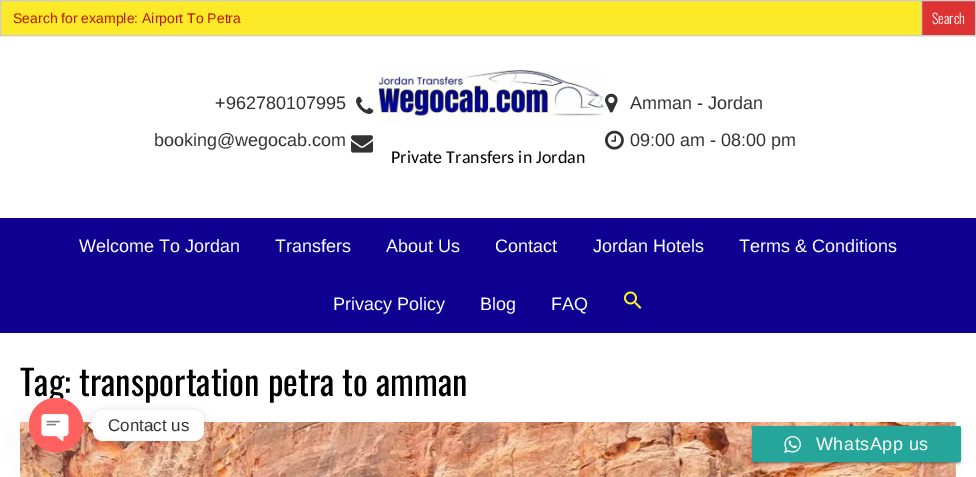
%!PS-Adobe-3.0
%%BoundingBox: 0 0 976 477
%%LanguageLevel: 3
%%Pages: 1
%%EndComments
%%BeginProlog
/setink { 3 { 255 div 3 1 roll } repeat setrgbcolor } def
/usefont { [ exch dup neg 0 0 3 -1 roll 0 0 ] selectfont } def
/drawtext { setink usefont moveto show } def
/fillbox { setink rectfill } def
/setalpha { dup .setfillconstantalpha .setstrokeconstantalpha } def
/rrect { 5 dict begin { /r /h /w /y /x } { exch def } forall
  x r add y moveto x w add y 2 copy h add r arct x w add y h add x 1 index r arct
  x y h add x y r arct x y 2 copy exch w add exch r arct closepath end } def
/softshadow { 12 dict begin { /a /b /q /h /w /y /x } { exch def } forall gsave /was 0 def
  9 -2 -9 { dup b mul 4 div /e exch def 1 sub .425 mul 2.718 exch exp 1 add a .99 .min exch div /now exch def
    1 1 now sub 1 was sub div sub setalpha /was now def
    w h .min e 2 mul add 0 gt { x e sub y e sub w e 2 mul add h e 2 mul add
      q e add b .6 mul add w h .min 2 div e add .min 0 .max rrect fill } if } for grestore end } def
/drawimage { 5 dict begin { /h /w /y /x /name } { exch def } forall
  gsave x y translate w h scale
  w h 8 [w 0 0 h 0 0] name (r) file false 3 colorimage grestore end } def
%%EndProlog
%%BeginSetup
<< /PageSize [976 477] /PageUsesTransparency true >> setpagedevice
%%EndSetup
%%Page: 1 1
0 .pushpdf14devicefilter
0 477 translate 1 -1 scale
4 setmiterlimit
0 0 976 477 255 255 255 fillbox
1 1 920 34 252 234 40 fillbox
204 204 204 setink
0.5 0.5 975 35 rectstroke
(Search for example: Airport To Petra) 13 23 /LiberationSans-Regular 14 186 24 0 drawtext
221 51 51 setink
921.5 0.5 moveto 975.5 0.5 lineto 975.5 35.5 lineto 921.5 35.5 lineto closepath gsave fill grestore
204 204 204 setink
stroke
(Search) 932 24 /Oswald-Light 14 255 255 255 drawtext
(+962780107995) 215 109 /LiberationSans-Regular 18 51 51 51 drawtext
(assets/img1.rgb) 356 96 18 18 drawimage
(booking@wegocab.com) 154 146 /LiberationSans-Regular 18 51 51 51 drawtext
(assets/img2.rgb) 351 135 22 18 drawimage
(assets/img3.rgb) 605 93 13 20 drawimage
(Amman - Jordan) 630 109 /LiberationSans-Regular 18 51 51 51 drawtext
(assets/img4.rgb) 605 130 19 20 drawimage
(09:00 am - 08:00 pm) 630 146 /LiberationSans-Regular 18 51 51 51 drawtext
(assets/img5.rgb) 377 69 227 55 drawimage
(Private Transfers in Jordan) 391 163 /Carlito-Regular 18 0 0 0 drawtext
0 218 976 115 16 0 145 fillbox
(Welcome To Jordan) 79 252 /LiberationSans-Regular 18 255 255 255 drawtext
(Transfers) 275 252 /LiberationSans-Regular 18 255 255 255 drawtext
(About Us) 386 252 /LiberationSans-Regular 18 255 255 255 drawtext
(Contact) 495 252 /LiberationSans-Regular 18 255 255 255 drawtext
(Jordan Hotels) 593 252 /LiberationSans-Regular 18 255 255 255 drawtext
(Terms & Conditions) 739 252 /LiberationSans-Regular 18 255 255 255 drawtext
(Privacy Policy) 333 310 /LiberationSans-Regular 18 255 255 255 drawtext
(Blog) 480 310 /LiberationSans-Regular 18 255 255 255 drawtext
(FAQ) 551 310 /LiberationSans-Regular 18 255 255 255 drawtext
(assets/img6.rgb) 624 291 18 18 drawimage
(Tag: transportation petra to amman) 20 396 /Oswald-Regular 35 0 0 0 drawtext
(assets/img7.rgb) 20 422 936 55 drawimage
93 411 111 31 10 4 0.15 softshadow
255 255 255 setink
93 410 111 31 10 rrect fill
93 420.5 moveto 93 430.5 lineto 88 425.5 lineto closepath fill
73 104 126 setink
29 414 54 54 27 12 0.16 softshadow
(assets/img8.rgb) 29 398 54 54 drawimage
(Contact us) 108 431 /LiberationSans-Regular 17 51 51 51 drawtext
0 0 0 setink
754 431 205 32 0 0.5 0.2 softshadow
752 427 209 36 2 2.5 0.12 softshadow
752 428 209 36 2 1 0.14 softshadow
38 166 154 setink
752 426 209 36 2 rrect fill
(assets/img9.rgb) 784 436 17 17 drawimage
/LiberationSans-Regular 18 usefont
255 255 255 setink
816 450 moveto 0.5 0 (WhatsApp us) ashow
.poppdf14devicefilter showpage
%%EOF
